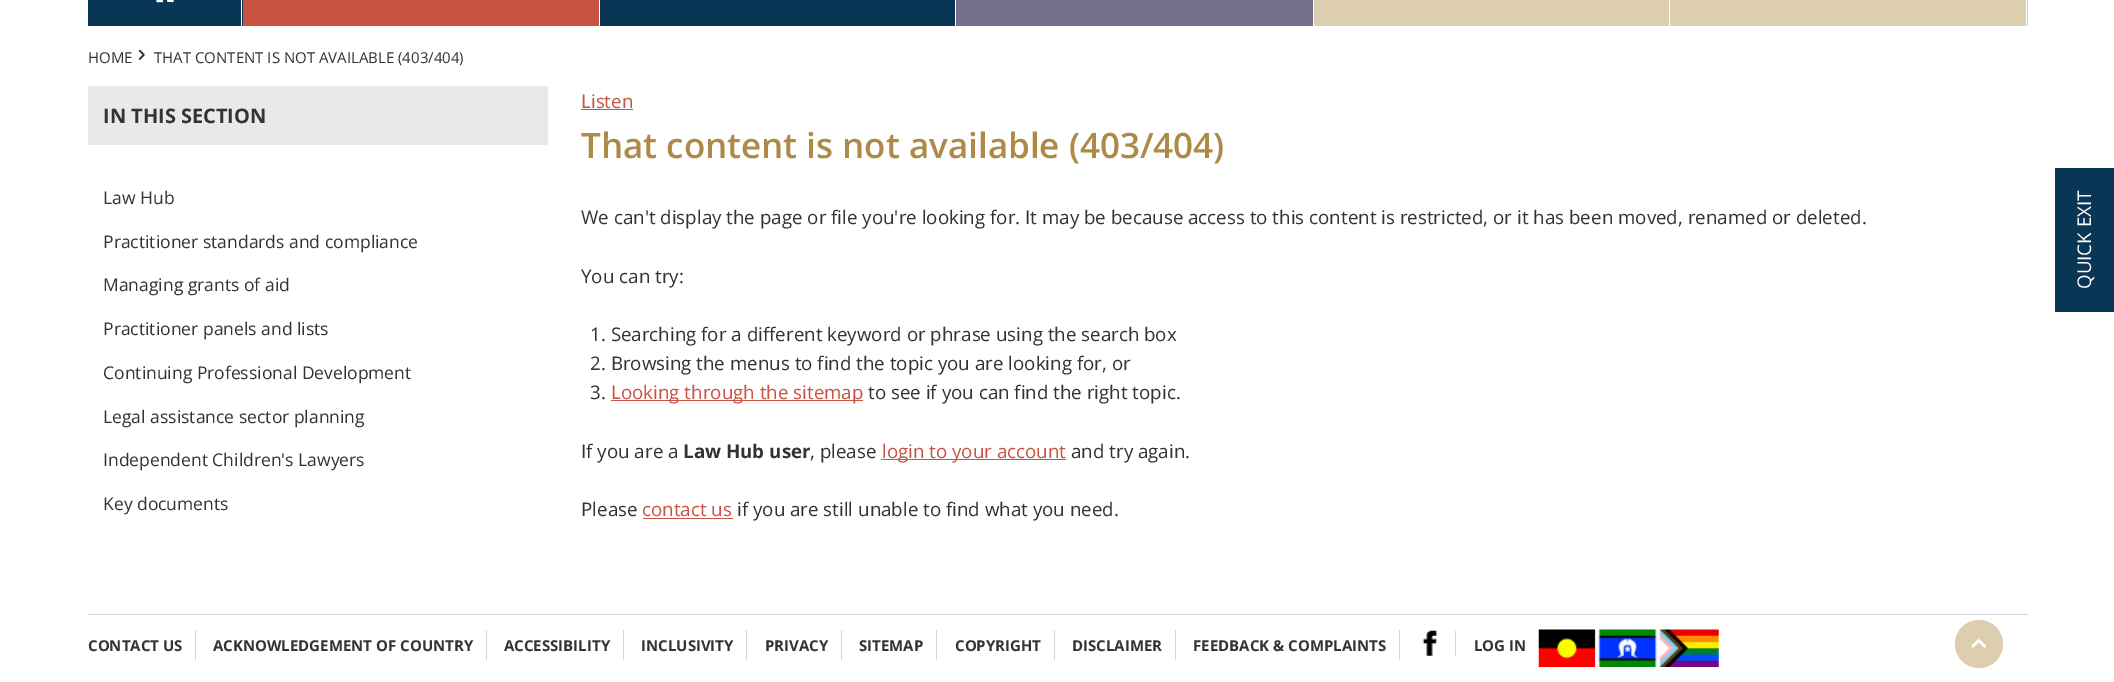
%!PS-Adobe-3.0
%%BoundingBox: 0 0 2114 682
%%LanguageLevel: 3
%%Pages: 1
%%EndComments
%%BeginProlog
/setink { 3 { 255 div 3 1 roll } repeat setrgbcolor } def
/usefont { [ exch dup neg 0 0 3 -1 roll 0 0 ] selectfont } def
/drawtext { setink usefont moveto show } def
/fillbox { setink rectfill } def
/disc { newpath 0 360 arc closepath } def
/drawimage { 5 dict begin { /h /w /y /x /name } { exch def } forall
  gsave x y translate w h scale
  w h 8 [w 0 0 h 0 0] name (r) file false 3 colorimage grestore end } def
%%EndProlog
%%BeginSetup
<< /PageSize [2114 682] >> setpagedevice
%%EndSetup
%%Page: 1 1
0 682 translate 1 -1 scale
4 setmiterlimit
0 0 2114 682 255 255 255 fillbox
88 0 155 26 9 54 85 fillbox
(assets/img1.rgb) 156 0 18 3 drawimage
241 0 1 26 255 255 255 fillbox
243 0 356 26 200 83 66 fillbox
600 0 355 26 9 54 85 fillbox
956 0 357 26 118 111 138 fillbox
1314 0 355 26 222 206 176 fillbox
1670 0 358 26 222 206 176 fillbox
2026 0 1 26 255 255 255 fillbox
(HOME) 88 63 /OpenSans-Regular 15 51 51 51 drawtext
(assets/img2.rgb) 138 49 7 11 drawimage
(THAT CONTENT IS NOT AVAILABLE \(403/404\)) 154 63 /OpenSans-Regular 15 51 51 51 drawtext
(Listen) 581 108 /OpenSans-Regular 18.75 200 83 66 drawtext
581 109 52 1 200 83 66 fillbox
88 86 460 59 233 233 233 fillbox
(IN THIS SECTION) 103 123 /OpenSans-Bold 20 51 51 51 drawtext
(Law Hub) 103 204 /OpenSans-Regular 17.5 51 51 51 drawtext
(Practitioner standards and compliance) 103 248 /OpenSans-Regular 17.5 51 51 51 drawtext
(Managing grants of aid) 103 291 /OpenSans-Regular 17.5 51 51 51 drawtext
(Practitioner panels and lists) 103 335 /OpenSans-Regular 17.5 51 51 51 drawtext
(Continuing Professional Development) 103 379 /OpenSans-Regular 17.5 51 51 51 drawtext
(Legal assistance sector planning) 103 423 /OpenSans-Regular 17.5 51 51 51 drawtext
(Independent Children's Lawyers) 103 466 /OpenSans-Regular 17.5 51 51 51 drawtext
(Key documents) 103 510 /OpenSans-Regular 17.5 51 51 51 drawtext
(That content is not available \(403/404\)) 581 158 /OpenSans-SemiBold 35 173 138 72 drawtext
(We can't display the page or file you're looking for. It may be because access to this content is restricted, or it has been moved, renamed or deleted.) 581 224 /OpenSans-Regular 18.75 51 51 51 drawtext
(You can try:) 581 283 /OpenSans-Regular 18.75 51 51 51 drawtext
(1. Searching for a different keyword or phrase using the search box) 590 341 /OpenSans-Regular 18.75 51 51 51 drawtext
(2. Browsing the menus to find the topic you are looking for, or) 590 370 /OpenSans-Regular 18.75 51 51 51 drawtext
(3.) 590 399 /OpenSans-Regular 18.75 51 51 51 drawtext
611 400 252 1 200 83 66 fillbox
(Looking through the sitemap) 611 399 /OpenSans-Regular 18.75 200 83 66 drawtext
(to see if you can find the right topic.) 868 399 /OpenSans-Regular 18.75 51 51 51 drawtext
(If you are a) 581 458 /OpenSans-Regular 18.75 51 51 51 drawtext
(Law Hub user) 683 458 /OpenSans-Bold 18.75 51 51 51 drawtext
(, please) 810 458 /OpenSans-Regular 18.75 51 51 51 drawtext
881 459 185 1 200 83 66 fillbox
(login to your account) 882 458 /OpenSans-Regular 18.75 200 83 66 drawtext
(and try again.) 1071 458 /OpenSans-Regular 18.75 51 51 51 drawtext
(Please) 581 516 /OpenSans-Regular 18.75 51 51 51 drawtext
(contact us) 642 516 /OpenSans-Regular 18.75 200 83 66 drawtext
643 518 90 1 200 83 66 fillbox
(if you are still unable to find what you need.) 737 516 /OpenSans-Regular 18.75 51 51 51 drawtext
88 614 1940 1 211 211 211 fillbox
195 630 1 30 211 211 211 fillbox
(CONTACT US) 88 651 /OpenSans-Bold 15 51 51 51 drawtext
486 630 1 30 211 211 211 fillbox
(ACKNOWLEDGEMENT OF COUNTRY) 213 651 /OpenSans-Bold 15 51 51 51 drawtext
623 630 1 30 211 211 211 fillbox
(ACCESSIBILITY) 504 651 /OpenSans-Bold 15 51 51 51 drawtext
746 630 1 30 211 211 211 fillbox
(INCLUSIVITY) 641 651 /OpenSans-Bold 15 51 51 51 drawtext
841 630 1 30 211 211 211 fillbox
(PRIVACY) 765 651 /OpenSans-Bold 15 51 51 51 drawtext
936 630 1 30 211 211 211 fillbox
(SITEMAP) 859 651 /OpenSans-Bold 15 51 51 51 drawtext
1054 630 1 30 211 211 211 fillbox
(COPYRIGHT) 955 651 /OpenSans-Bold 15 51 51 51 drawtext
1175 630 1 30 211 211 211 fillbox
(DISCLAIMER) 1072 651 /OpenSans-Bold 15 51 51 51 drawtext
1399 630 1 30 211 211 211 fillbox
(FEEDBACK & COMPLAINTS) 1193 651 /OpenSans-Bold 15 51 51 51 drawtext
1455 631 1 25 211 211 211 fillbox
(assets/img3.rgb) 1422 630 16 26 drawimage
(LOG IN) 1474 651 /OpenSans-Bold 15 51 51 51 drawtext
(assets/img4.rgb) 1538 629 181 38 drawimage
222 206 176 setink
1979 644 24 disc fill
(assets/img5.rgb) 1971 639 15 9 drawimage
2055 168 59 144 9 54 85 fillbox
/OpenSans-Regular 18.75 usefont
255 255 255 setink
gsave 2091 289 translate -90 rotate 0 0 moveto (QUICK EXIT) show grestore
showpage
%%EOF
